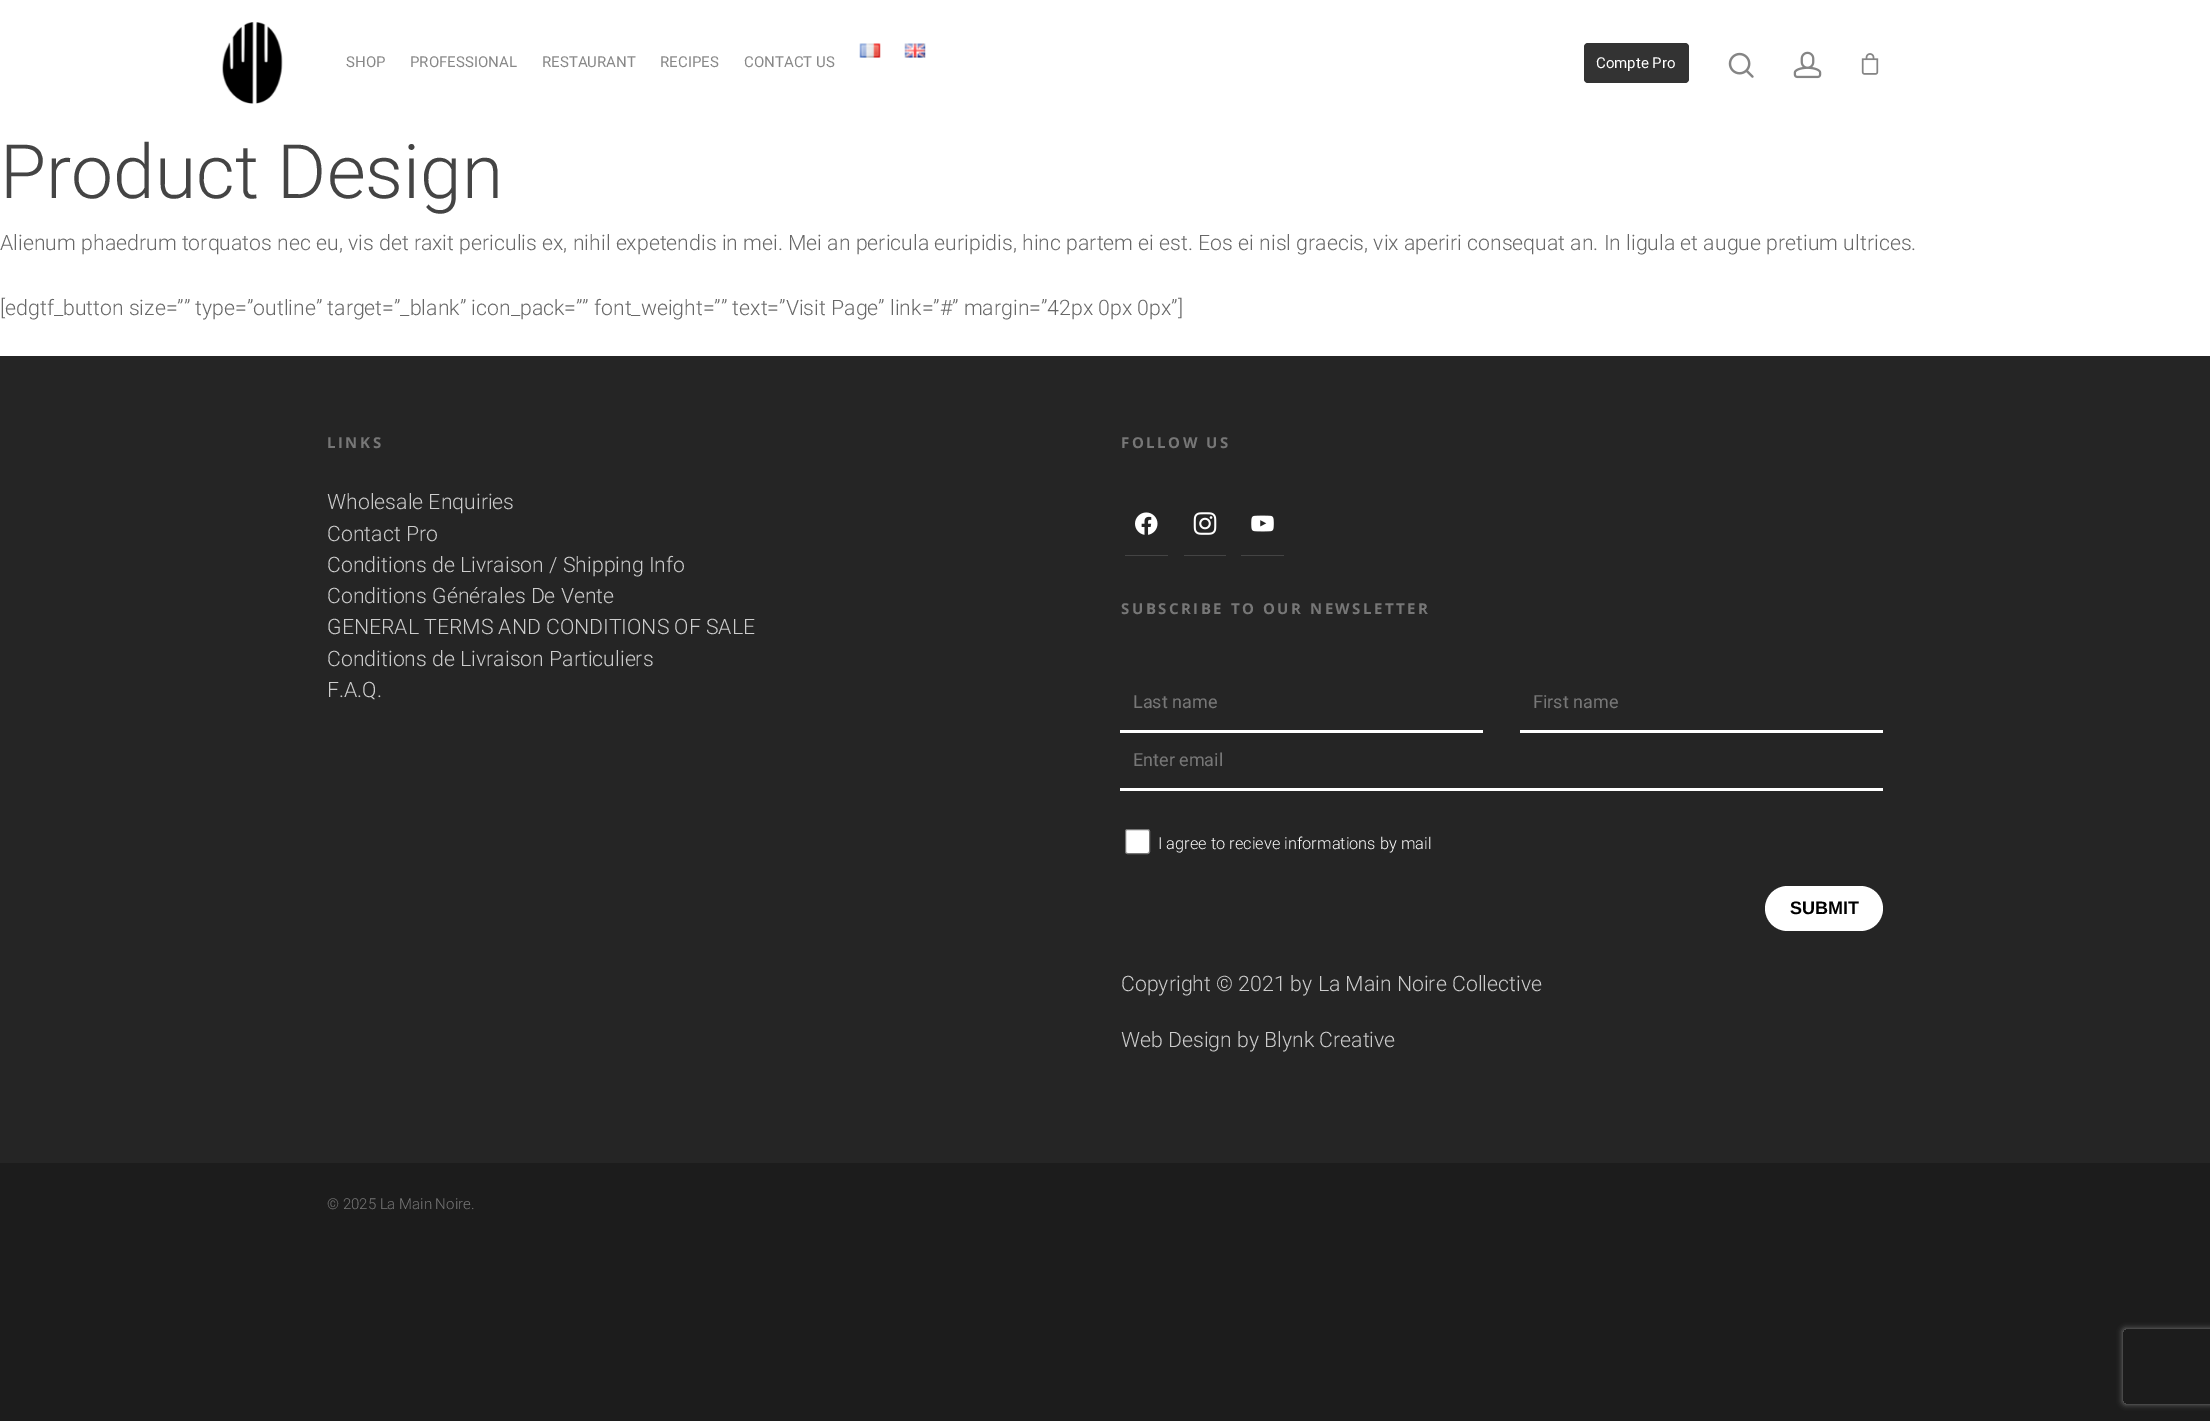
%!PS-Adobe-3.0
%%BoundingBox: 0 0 2210 1421
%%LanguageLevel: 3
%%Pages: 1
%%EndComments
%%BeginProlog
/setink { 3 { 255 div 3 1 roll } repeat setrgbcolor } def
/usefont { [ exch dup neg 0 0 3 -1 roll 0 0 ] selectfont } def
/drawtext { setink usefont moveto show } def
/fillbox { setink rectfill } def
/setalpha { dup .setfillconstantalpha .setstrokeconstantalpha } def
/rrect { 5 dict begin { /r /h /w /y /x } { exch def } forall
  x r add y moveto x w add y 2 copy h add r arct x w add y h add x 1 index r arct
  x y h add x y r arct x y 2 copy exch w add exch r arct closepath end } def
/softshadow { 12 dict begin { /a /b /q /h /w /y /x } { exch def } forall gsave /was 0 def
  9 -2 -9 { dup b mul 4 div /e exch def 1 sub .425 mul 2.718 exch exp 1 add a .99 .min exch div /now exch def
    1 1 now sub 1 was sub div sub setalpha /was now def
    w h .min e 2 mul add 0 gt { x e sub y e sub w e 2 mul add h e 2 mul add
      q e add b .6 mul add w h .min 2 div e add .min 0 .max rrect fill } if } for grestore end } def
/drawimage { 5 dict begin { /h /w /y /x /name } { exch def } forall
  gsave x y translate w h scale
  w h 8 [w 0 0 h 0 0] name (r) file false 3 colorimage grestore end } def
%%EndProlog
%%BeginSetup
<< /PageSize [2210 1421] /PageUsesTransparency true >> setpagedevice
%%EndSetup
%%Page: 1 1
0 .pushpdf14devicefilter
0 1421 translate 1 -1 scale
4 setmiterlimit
0 0 2210 1421 28 28 28 fillbox
0 0 2210 356 255 255 255 fillbox
(assets/img1.rgb) 222 22 61 82 drawimage
(assets/img2.rgb) 859 43 22 15 drawimage
(assets/img3.rgb) 904 43 22 15 drawimage
(SHOP) 346 67 /Roboto-Regular 15 136 136 136 drawtext
(PROFESSIONAL) 410 67 /Roboto-Regular 15 136 136 136 drawtext
(RESTAURANT) 542 67 /Roboto-Regular 15 136 136 136 drawtext
(RECIPES) 660 67 /Roboto-Regular 15 136 136 136 drawtext
(CONTACT US) 744 67 /Roboto-Regular 15 136 136 136 drawtext
51 51 51 setink
1584 43 105 40 4 rrect fill
(Compte Pro) 1596 68 /Roboto-Regular 15 255 255 255 drawtext
(assets/img4.rgb) 1728 52 26 26 drawimage
(assets/img5.rgb) 1793 51 29 28 drawimage
(assets/img6.rgb) 1861 53 18 22 drawimage
(Product Design) 0 198 /Roboto-Light 75 68 68 68 drawtext
(Alienum phaedrum torquatos nec eu, vis det raxit periculis ex, nihil expetendis in mei. Mei an pericula euripidis, hinc partem ei est. Eos ei nisl graecis, vix aperiri consequat an. In ligula et augue pretium ultrices.) 0 250 /Roboto-Light 21.25 103 103 103 drawtext
([edgtf_button size=”” type=”outline” target=”_blank” icon_pack=”” font_weight=”” text=”Visit Page” link=”#” margin=”42px 0px 0px”]) 0 315 /Roboto-Light 21.25 103 103 103 drawtext
0 356 2210 807 37 37 37 fillbox
/OpenSans-Bold 15 usefont
119 119 119 setink
327 448 moveto 2.5 0 (LINKS) ashow
(Wholesale Enquiries) 327 509 /Roboto-Light 21.25 204 204 204 drawtext
(Contact Pro) 327 541 /Roboto-Light 21.25 204 204 204 drawtext
(Conditions de Livraison / Shipping Info) 327 572 /Roboto-Light 21.25 204 204 204 drawtext
(Conditions Générales De Vente) 327 603 /Roboto-Light 21.25 204 204 204 drawtext
(GENERAL TERMS AND CONDITIONS OF SALE) 327 634 /Roboto-Light 21.25 204 204 204 drawtext
(Conditions de Livraison Particuliers) 327 666 /Roboto-Light 21.25 204 204 204 drawtext
(F.A.Q.) 327 697 /Roboto-Light 21.25 204 204 204 drawtext
/OpenSans-Bold 15 usefont
119 119 119 setink
1121 448 moveto 2.5 0 (FOLLOW US) ashow
1125 555 43 1 68 68 68 fillbox
(assets/img7.rgb) 1135 512 23 23 drawimage
1184 555 42 1 68 68 68 fillbox
(assets/img8.rgb) 1193 512 24 23 drawimage
1241 555 43 1 68 68 68 fillbox
(assets/img9.rgb) 1251 515 23 17 drawimage
119 119 119 setink
1121 614 moveto 2.5 0 (SUBSCRIBE TO OUR NEWSLETTER) ashow
1120 730 363 3 255 255 255 fillbox
(Last name) 1133 708 /Roboto-Regular 18 119 119 119 drawtext
1520 730 363 3 255 255 255 fillbox
(First name) 1533 708 /Roboto-Regular 18 119 119 119 drawtext
1120 788 763 3 255 255 255 fillbox
(Enter email) 1133 766 /Roboto-Regular 18 119 119 119 drawtext
255 255 255 setink
1125.5 829.5 24 24 2 rrect gsave fill grestore
118 118 118 setink
stroke
(I agree to recieve informations by mail) 1158 849 /Roboto-Light 16.4 255 255 255 drawtext
1765 886 118 45 22.5 rrect fill
(SUBMIT) 1790 914 /LiberationSans-Bold 18 0 0 0 drawtext
(Copyright © 2021 by La Main Noire Collective) 1121 991 /Roboto-Light 21.25 204 204 204 drawtext
(Web Design by Blynk Creative) 1121 1047 /Roboto-Light 21.25 204 204 204 drawtext
(© 2025 La Main Noire.) 327 1209 /Roboto-Light 15 119 119 119 drawtext
gsave
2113 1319 moveto 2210 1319 lineto 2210 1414 lineto 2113 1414 lineto closepath 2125.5 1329 moveto 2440.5 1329 lineto 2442 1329 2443 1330 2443 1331.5 curveto 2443 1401.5 lineto 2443 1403 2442 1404 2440.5 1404 curveto 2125.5 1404 lineto 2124 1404 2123 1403 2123 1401.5 curveto 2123 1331.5 lineto 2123 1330 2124 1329 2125.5 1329 curveto closepath eoclip newpath
128 128 128 setink
2123 1329 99 75 2.5 3 1 softshadow
grestore
.poppdf14devicefilter showpage
%%EOF
